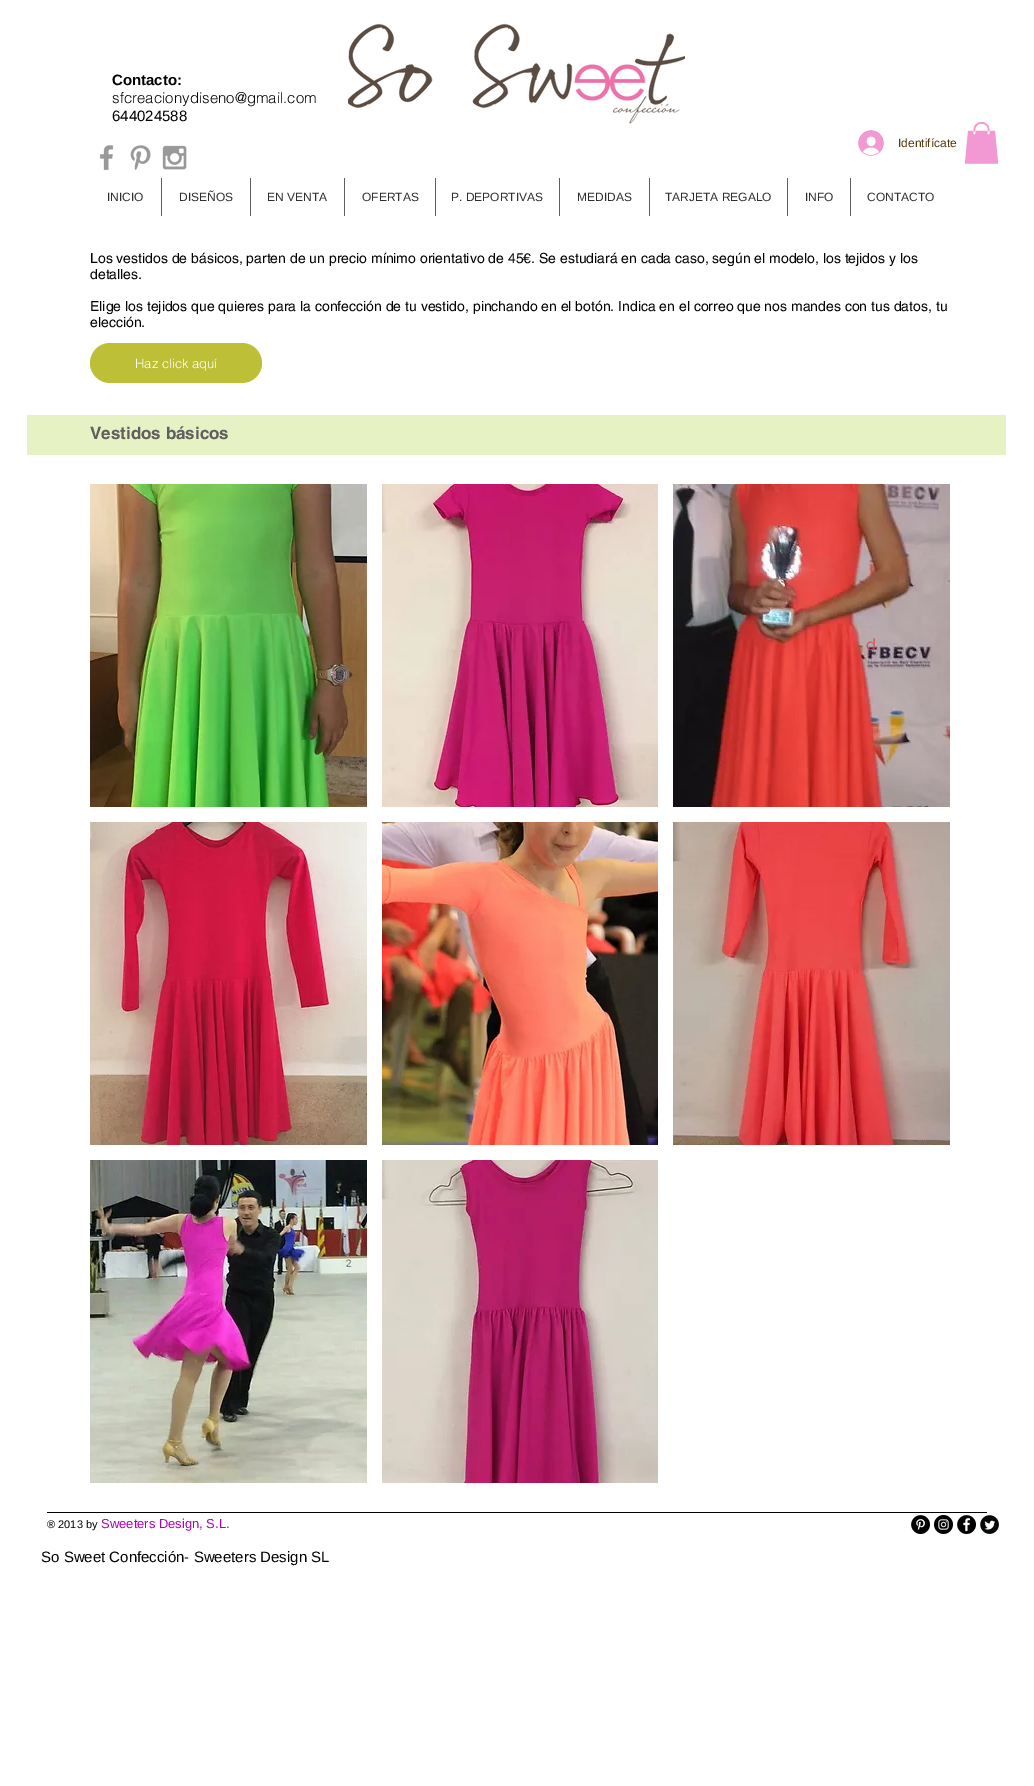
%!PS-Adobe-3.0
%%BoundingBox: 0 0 1034 1786
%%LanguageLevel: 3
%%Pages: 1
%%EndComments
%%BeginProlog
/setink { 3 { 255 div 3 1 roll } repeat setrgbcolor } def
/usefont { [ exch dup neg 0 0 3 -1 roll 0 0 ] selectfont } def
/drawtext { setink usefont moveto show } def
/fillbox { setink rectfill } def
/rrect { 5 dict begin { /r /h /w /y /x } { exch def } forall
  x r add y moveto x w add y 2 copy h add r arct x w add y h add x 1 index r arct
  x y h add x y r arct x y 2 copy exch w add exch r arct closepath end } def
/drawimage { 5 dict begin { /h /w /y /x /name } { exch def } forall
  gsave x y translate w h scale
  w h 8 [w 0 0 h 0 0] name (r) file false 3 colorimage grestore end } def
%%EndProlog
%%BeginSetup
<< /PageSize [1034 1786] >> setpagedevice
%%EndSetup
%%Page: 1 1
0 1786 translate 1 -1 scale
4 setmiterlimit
0 0 1034 1786 255 255 255 fillbox
(Contacto:) 112 85 /LiberationSans-Bold 15 0 0 0 drawtext
(sfcreacionydiseno@gmail.com) 112 103 /helvetica-Light 15 0 0 0 drawtext
(644024588) 112 121 /LiberationSans-Regular 15 0 0 0 drawtext
(assets/img1.rgb) 348 23 337 101 drawimage
(assets/img2.rgb) 858 130 26 26 drawimage
(Identifícate) 898 147 /LiberationSans-Regular 12 84 56 13 drawtext
(assets/img3.rgb) 964 122 35 42 drawimage
(assets/img4.rgb) 99 145 15 26 drawimage
(assets/img5.rgb) 130 145 21 25 drawimage
(assets/img6.rgb) 162 145 25 25 drawimage
(INICIO) 107 201 /LiberationSans-Regular 12 47 46 46 drawtext
161 178 1 38 96 94 94 fillbox
(DISEÑOS) 179 201 /LiberationSans-Regular 12 47 46 46 drawtext
250 178 1 38 96 94 94 fillbox
(EN VENTA) 267 201 /LiberationSans-Regular 12 47 46 46 drawtext
344 178 1 38 96 94 94 fillbox
(OFERTAS) 362 201 /LiberationSans-Regular 12 47 46 46 drawtext
435 178 1 38 96 94 94 fillbox
(P. DEPORTIVAS) 451 201 /LiberationSans-Regular 12 47 46 46 drawtext
559 178 1 38 96 94 94 fillbox
(MEDIDAS) 577 201 /LiberationSans-Regular 12 47 46 46 drawtext
649 178 1 38 96 94 94 fillbox
(TARJETA REGALO) 665 201 /LiberationSans-Regular 12 47 46 46 drawtext
787 178 1 38 96 94 94 fillbox
(INFO) 805 201 /LiberationSans-Regular 12 47 46 46 drawtext
850 178 1 38 96 94 94 fillbox
(CONTACTO) 867 201 /LiberationSans-Regular 12 47 46 46 drawtext
(Los vestidos de básicos, parten de un precio mínimo orientativo de 45€. Se estudiará en cada caso, según el modelo, los tejidos y los) 90 263 /helvetica-Regular 14 0 0 0 drawtext
(detalles.) 90 279 /helvetica-Regular 14 0 0 0 drawtext
(Elige los tejidos que quieres para la confección de tu vestido, pinchando en el botón. Indica en el correo que nos mandes con tus datos, tu) 90 311 /helvetica-Regular 14 0 0 0 drawtext
(elección.) 90 327 /helvetica-Regular 14 0 0 0 drawtext
189 191 55 setink
90 343 172 40 20 rrect fill
(Haz click aquí) 135 368 /helvetica-Light 13 255 255 255 drawtext
27 415 979 40 231 242 196 fillbox
(Vestidos básicos) 90 439 /helvetica-Bold 17 96 94 94 drawtext
(assets/img7.rgb) 90 484 277 323 drawimage
(I) 164 650 /Raleway-Regular 16 98 192 82 drawtext
(assets/img8.rgb) 382 484 276 323 drawimage
(assets/img9.rgb) 673 484 277 323 drawimage
(d) 866 650 /Raleway-Regular 16 213 74 69 drawtext
(assets/img10.rgb) 90 822 277 323 drawimage
(assets/img11.rgb) 382 822 276 323 drawimage
(assets/img12.rgb) 673 822 277 323 drawimage
(assets/img13.rgb) 90 1160 277 323 drawimage
(assets/img14.rgb) 382 1160 276 323 drawimage
47 1512 940 1 0 0 0 fillbox
(® 2013 by) 47 1528 /LiberationSans-Regular 11 0 0 0 drawtext
(Sweeters Design, S.L.) 101 1528 /LiberationSans-Regular 13 175 0 184 drawtext
(assets/img15.rgb) 911 1515 19 19 drawimage
(assets/img16.rgb) 934 1515 19 19 drawimage
(assets/img17.rgb) 957 1515 19 19 drawimage
(assets/img18.rgb) 980 1515 19 19 drawimage
(So Sweet Confección- Sweeters Design SL) 41 1562 /LiberationSans-Regular 15 0 0 0 drawtext
showpage
%%EOF
